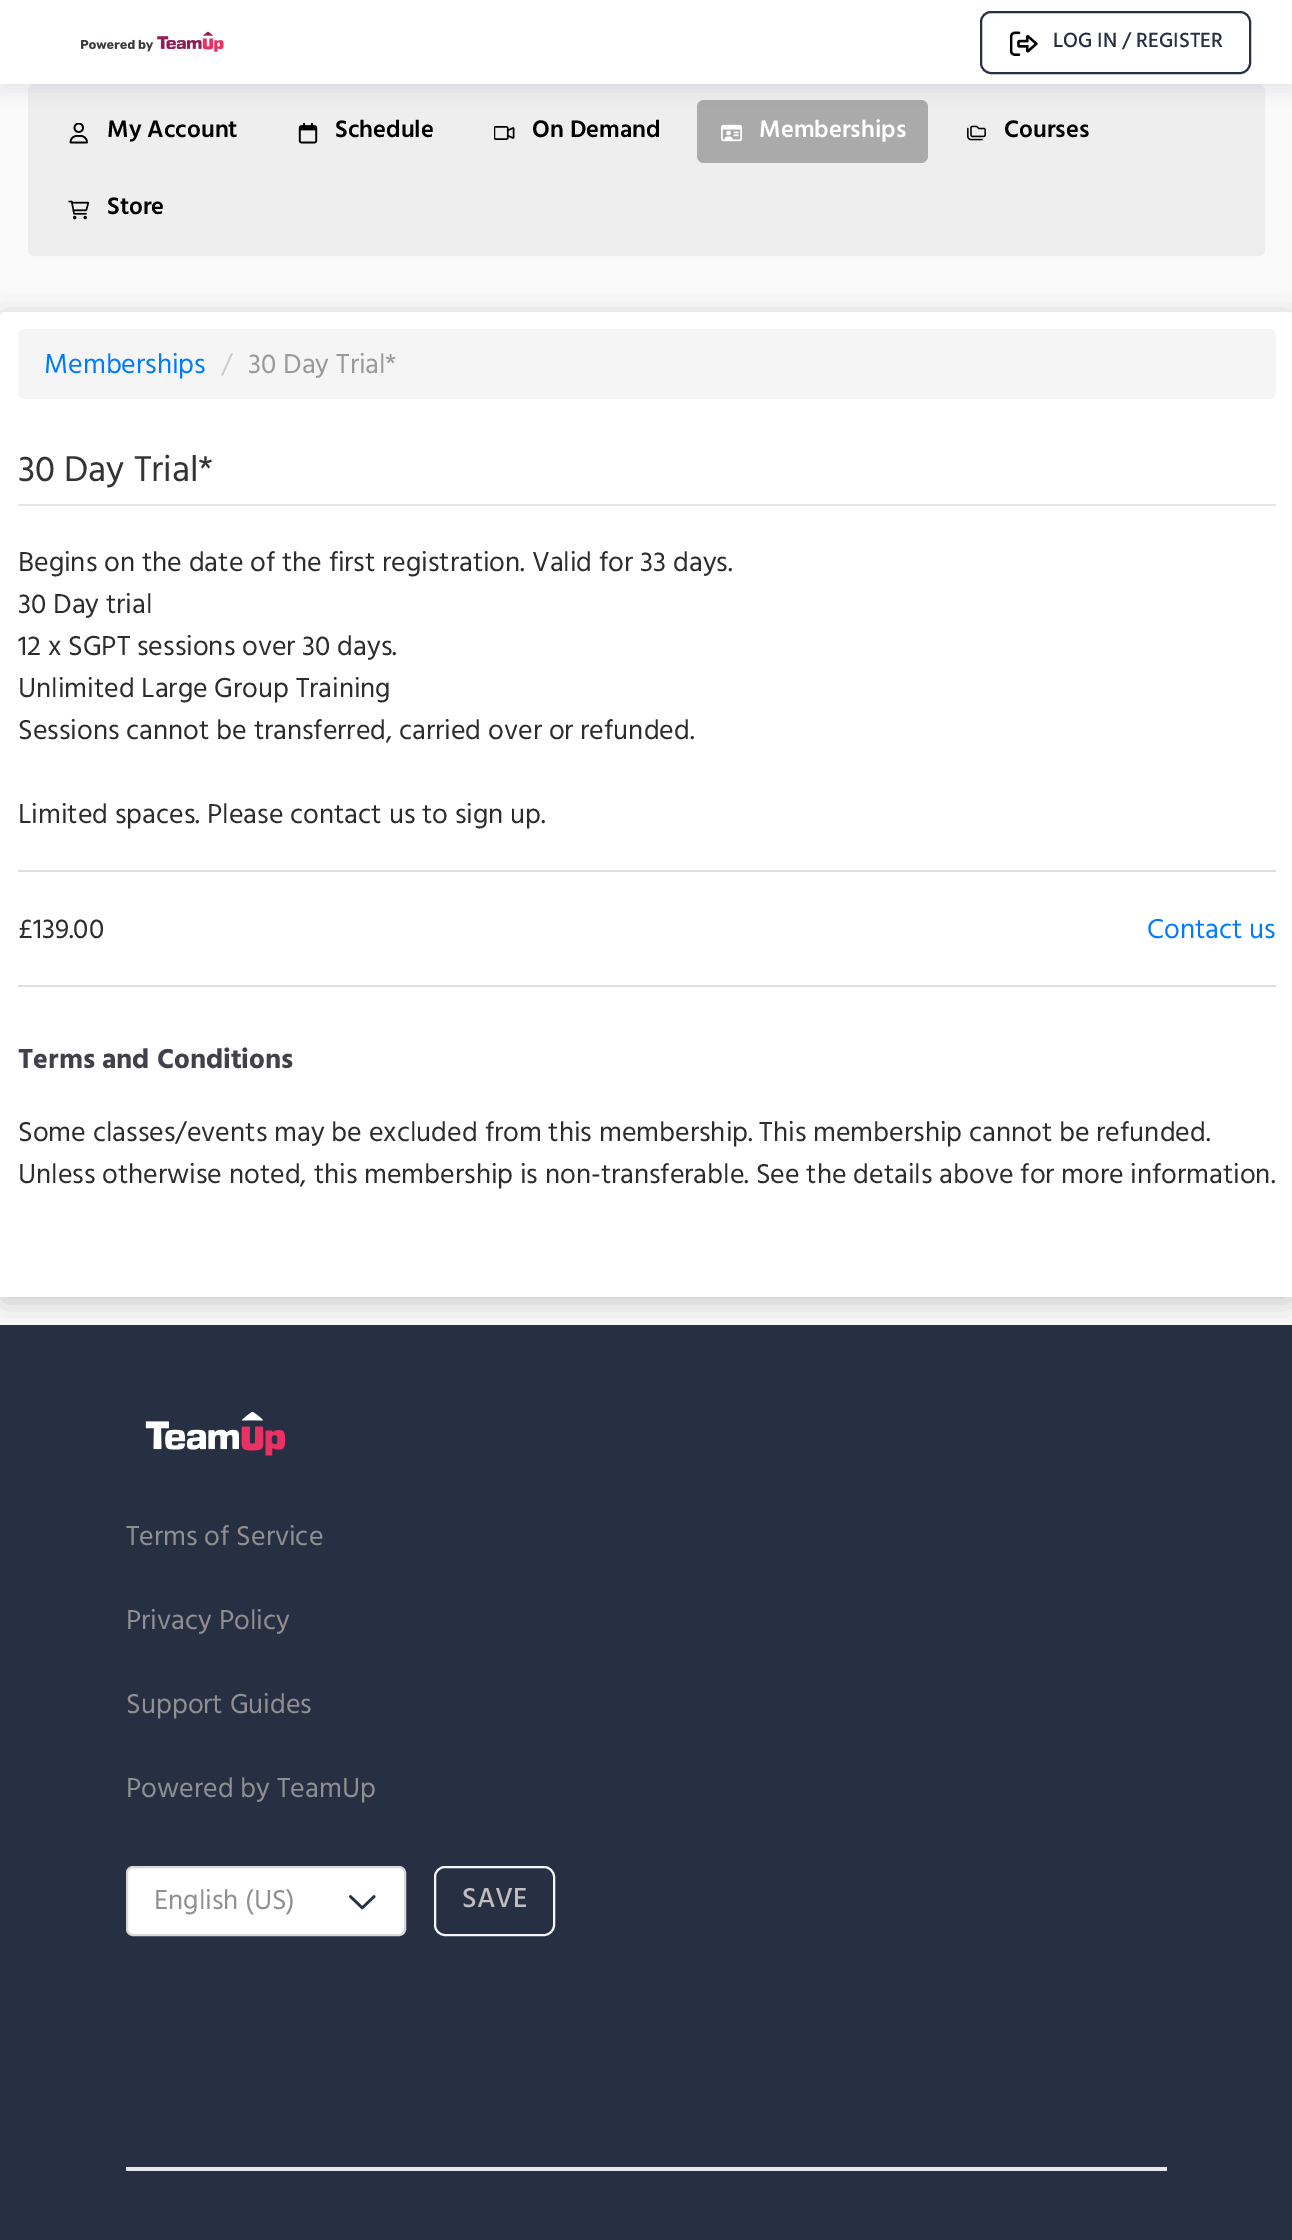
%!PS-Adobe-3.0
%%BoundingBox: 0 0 1292 2240
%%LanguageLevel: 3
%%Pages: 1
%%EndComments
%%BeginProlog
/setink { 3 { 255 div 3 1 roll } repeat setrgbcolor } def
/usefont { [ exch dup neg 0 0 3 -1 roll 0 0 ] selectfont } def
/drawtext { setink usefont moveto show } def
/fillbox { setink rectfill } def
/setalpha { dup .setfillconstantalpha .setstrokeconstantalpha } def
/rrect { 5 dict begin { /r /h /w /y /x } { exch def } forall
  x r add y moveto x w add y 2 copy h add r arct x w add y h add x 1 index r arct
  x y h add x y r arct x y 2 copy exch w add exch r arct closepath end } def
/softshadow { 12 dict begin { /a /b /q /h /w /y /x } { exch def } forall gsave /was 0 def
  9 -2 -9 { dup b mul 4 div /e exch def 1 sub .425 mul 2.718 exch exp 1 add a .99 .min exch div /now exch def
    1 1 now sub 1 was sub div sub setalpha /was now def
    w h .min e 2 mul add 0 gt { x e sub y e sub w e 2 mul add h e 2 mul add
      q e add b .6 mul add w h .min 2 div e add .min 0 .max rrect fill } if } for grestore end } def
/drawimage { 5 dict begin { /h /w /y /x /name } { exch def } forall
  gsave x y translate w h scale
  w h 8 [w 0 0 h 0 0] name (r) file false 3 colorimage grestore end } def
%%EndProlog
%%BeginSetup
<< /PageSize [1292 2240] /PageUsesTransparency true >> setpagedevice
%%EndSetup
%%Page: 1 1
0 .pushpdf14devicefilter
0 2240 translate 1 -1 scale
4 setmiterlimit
0 0 1292 2240 250 250 250 fillbox
238 238 238 setink
29 85 1235 170 6 rrect gsave fill grestore
235 237 240 setink
2 setlinewidth
stroke
170 170 170 setink
697 100 231 63 7 rrect fill
23 32 78 setink
0 7 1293 84 0 7 0.08 softshadow
0 0 1292 84 255 255 255 fillbox
(assets/img1.rgb) 81 31 143 21 drawimage
39 48 67 setink
981 12 269 61 10 rrect stroke
(assets/img2.rgb) 1010 31 28 25 drawimage
(LOG IN / REGISTER) 1053 47 /Hind-Medium 21 39 48 67 drawtext
(assets/img3.rgb) 69 123 19 21 drawimage
(My Account) 107 137 /Hind-SemiBold 24.5 0 0 0 drawtext
(assets/img4.rgb) 298 123 20 21 drawimage
(Schedule) 335 137 /Hind-SemiBold 24.5 0 0 0 drawtext
(assets/img5.rgb) 494 126 21 14 drawimage
(On Demand) 532 137 /Hind-SemiBold 24.5 0 0 0 drawtext
(assets/img6.rgb) 721 124 21 18 drawimage
(Memberships) 759 137 /Hind-SemiBold 24.5 255 255 255 drawtext
(assets/img7.rgb) 967 125 19 16 drawimage
(Courses) 1004 137 /Hind-SemiBold 24.5 0 0 0 drawtext
(assets/img8.rgb) 68 200 21 20 drawimage
(Store) 107 214 /Hind-SemiBold 24.5 0 0 0 drawtext
0 317 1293 985 5 13 0.2 softshadow
255 255 255 setink
5 312 moveto 1288 312 lineto 1291 312 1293 314 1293 317 curveto 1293 1297 lineto 0 1297 lineto 0 317 lineto 0 314 2 312 5 312 curveto closepath fill
245 245 245 setink
18 329 1258 70 7 rrect fill
(Memberships) 44 373 /Hind-Regular 28 0 123 255 drawtext
(/) 221 373 /Hind-Regular 28 204 204 204 drawtext
(30 Day Trial*) 248 373 /Hind-Regular 28 153 153 153 drawtext
18 504 1258 2 229 229 229 fillbox
(30 Day Trial*) 18 481 /Hind-Regular 36.75 51 51 51 drawtext
(Begins on the date of the first registration. Valid for 33 days.) 18 571 /Hind-Regular 28 44 44 44 drawtext
(30 Day trial) 18 613 /Hind-Regular 28 44 44 44 drawtext
(12 x SGPT sessions over 30 days.) 18 655 /Hind-Regular 28 44 44 44 drawtext
(Unlimited Large Group Training) 18 697 /Hind-Regular 28 44 44 44 drawtext
(Sessions cannot be transferred, carried over or refunded.) 18 739 /Hind-Regular 28 44 44 44 drawtext
(Limited spaces. Please contact us to sign up.) 18 823 /Hind-Regular 28 44 44 44 drawtext
18 870 1258 2 221 221 226 fillbox
(£139.00) 18 938 /Hind-Regular 28 44 44 44 drawtext
(Contact us) 1147 938 /Hind-Regular 28 0 123 255 drawtext
18 985 1258 2 221 221 226 fillbox
(Terms and Conditions) 18 1068 /Hind-Bold 28 65 65 76 drawtext
(Some classes/events may be excluded from this membership. This membership cannot be refunded.) 18 1141 /Hind-Regular 28 44 44 44 drawtext
(Unless otherwise noted, this membership is non-transferable. See the details above for more information.) 18 1183 /Hind-Regular 28 44 44 44 drawtext
0 1325 1292 915 39 48 67 fillbox
(assets/img9.rgb) 145 1411 141 45 drawimage
(Terms of Service) 126 1545 /Hind-Regular 28 145 143 144 drawtext
(Privacy Policy) 126 1629 /Hind-Regular 28 145 143 144 drawtext
(Support Guides) 126 1713 /Hind-Regular 28 145 143 144 drawtext
(Powered by TeamUp) 126 1797 /Hind-Regular 28 145 143 144 drawtext
255 255 255 setink
127 1867 278 68 6 rrect gsave fill grestore
216 217 219 setink
stroke
(English \(US\)) 154 1909 /Hind-Regular 28 145 143 144 drawtext
(assets/img10.rgb) 349 1895 27 15 drawimage
244 245 247 setink
435 1867 119 68 10 rrect stroke
(SAVE) 462 1907 /Hind-Medium 28 191 189 190 drawtext
126 2167 1041 4 229 231 235 fillbox
.poppdf14devicefilter showpage
%%EOF
